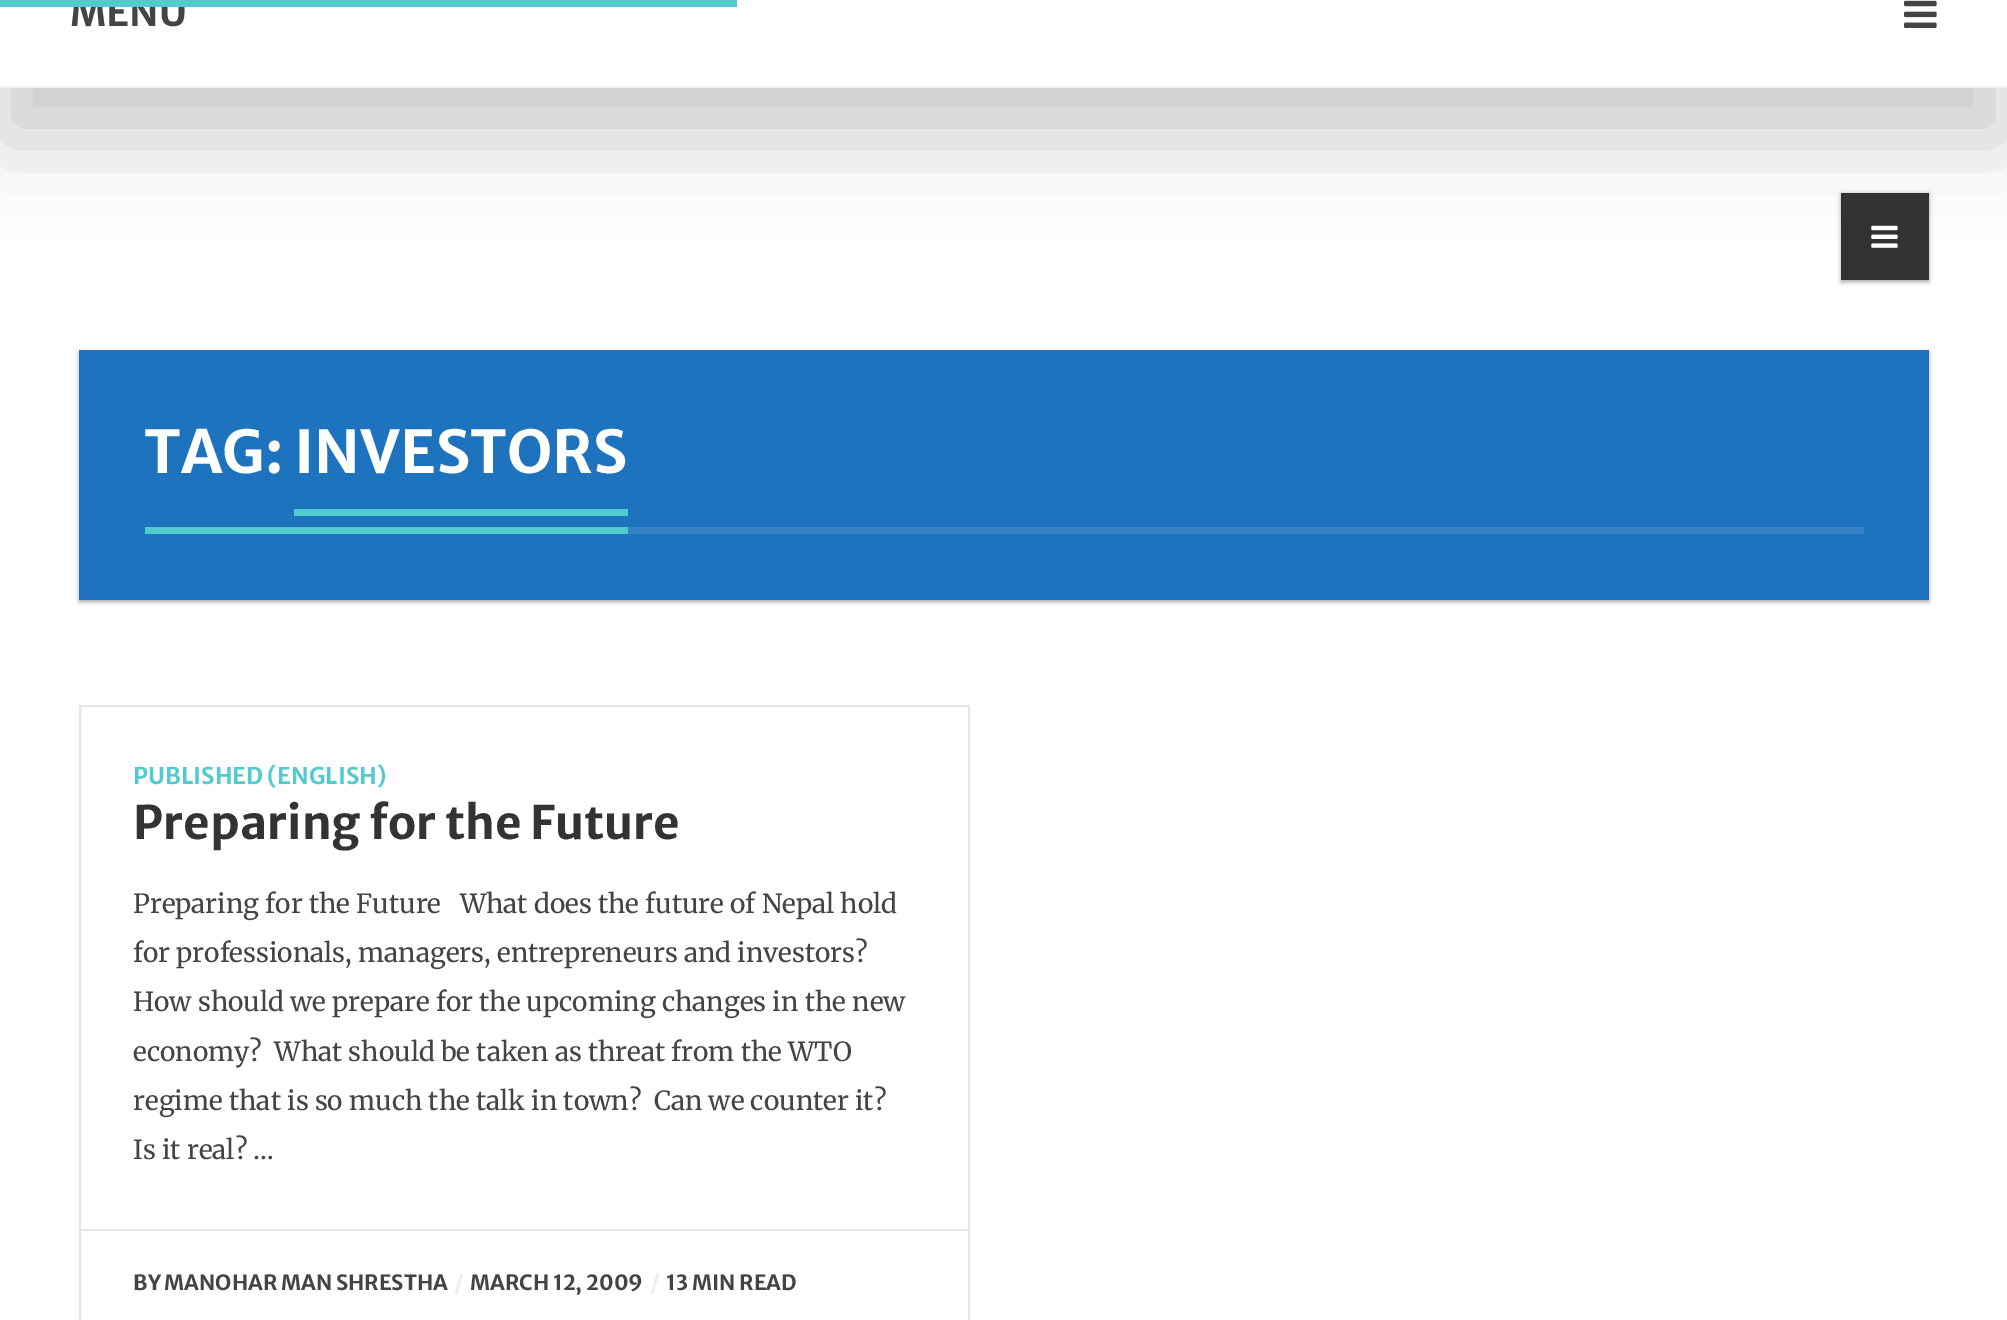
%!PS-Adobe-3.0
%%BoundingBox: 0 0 2007 1320
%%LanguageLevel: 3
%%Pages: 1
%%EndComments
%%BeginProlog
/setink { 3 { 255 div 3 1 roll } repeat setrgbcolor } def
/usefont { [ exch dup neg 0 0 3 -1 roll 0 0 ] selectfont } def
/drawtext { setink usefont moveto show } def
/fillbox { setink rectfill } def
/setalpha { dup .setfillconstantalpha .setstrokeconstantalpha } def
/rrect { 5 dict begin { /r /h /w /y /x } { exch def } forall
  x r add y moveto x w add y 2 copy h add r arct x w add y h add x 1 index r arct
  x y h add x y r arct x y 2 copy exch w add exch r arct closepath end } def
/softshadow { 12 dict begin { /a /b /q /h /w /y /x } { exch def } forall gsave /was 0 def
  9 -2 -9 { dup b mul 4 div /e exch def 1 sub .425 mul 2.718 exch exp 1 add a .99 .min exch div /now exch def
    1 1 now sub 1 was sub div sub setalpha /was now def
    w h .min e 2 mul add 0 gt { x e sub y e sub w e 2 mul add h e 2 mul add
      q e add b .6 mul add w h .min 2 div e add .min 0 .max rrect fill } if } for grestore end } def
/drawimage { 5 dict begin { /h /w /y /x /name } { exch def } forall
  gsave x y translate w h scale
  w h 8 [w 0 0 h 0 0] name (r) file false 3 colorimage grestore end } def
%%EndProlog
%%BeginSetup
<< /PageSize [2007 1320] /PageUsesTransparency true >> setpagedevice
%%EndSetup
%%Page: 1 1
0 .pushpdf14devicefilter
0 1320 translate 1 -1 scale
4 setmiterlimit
0 0 2007 1320 255 255 255 fillbox
1 1 1 setink
0 -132 2007 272 0 44 0.2 softshadow
0 0 2007 86 255 255 255 fillbox
(MENU) 70 26 /MerriweatherSans-Bold 38 68 68 68 drawtext
0 0 737 7 81 203 206 fillbox
0 86 2007 2 242 242 242 fillbox
(assets/img1.rgb) 1904 0 33 28 drawimage
0 0 0 setink
1841 194 88 88 0 2 0.24 softshadow
1841 194 88 88 0 2.5 0.12 softshadow
1841 193 88 87 51 51 51 fillbox
(assets/img2.rgb) 1871 225 27 23 drawimage
0 0 0 setink
79 352 1850 250 0 2 0.24 softshadow
79 352 1850 250 0 2.5 0.12 softshadow
79 350 1850 250 30 115 190 fillbox
628 527 1236 7 53 129 197 fillbox
(TAG: INVESTORS) 144 473 /MerriweatherSans-Bold 59 255 255 255 drawtext
294 509 334 7 81 203 206 fillbox
145 527 483 7 81 203 206 fillbox
230 230 230 setink
2 setlinewidth
80 706 889 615 rectstroke
(PUBLISHED \(ENGLISH\)) 133 784 /MerriweatherSans-Bold 23 81 203 206 drawtext
(Preparing for the Future) 133 839 /MerriweatherSans-Bold 46 51 51 51 drawtext
(Preparing for the Future   What does the future of Nepal hold) 133 913 /Merriweather-Regular 26.25 68 68 68 drawtext
(for professionals, managers, entrepreneurs and investors?) 133 962 /Merriweather-Regular 26.25 68 68 68 drawtext
(How should we prepare for the upcoming changes in the new) 133 1011 /Merriweather-Regular 26.25 68 68 68 drawtext
(economy?  What should be taken as threat from the WTO) 133 1061 /Merriweather-Regular 26.25 68 68 68 drawtext
(regime that is so much the talk in town?  Can we counter it?) 133 1110 /Merriweather-Regular 26.25 68 68 68 drawtext
(Is it real? …) 133 1159 /Merriweather-Regular 26.25 68 68 68 drawtext
81 1229 887 2 230 230 230 fillbox
(BY MANOHAR MAN SHRESTHA) 133 1290 /MerriweatherSans-Bold 21 68 68 68 drawtext
(/) 454 1290 /MerriweatherSans-Bold 21 236 236 236 drawtext
(MARCH 12, 2009) 470 1290 /MerriweatherSans-Bold 21 68 68 68 drawtext
(/) 650 1290 /MerriweatherSans-Bold 21 236 236 236 drawtext
(13 MIN READ) 666 1290 /MerriweatherSans-Bold 21 68 68 68 drawtext
.poppdf14devicefilter showpage
%%EOF
